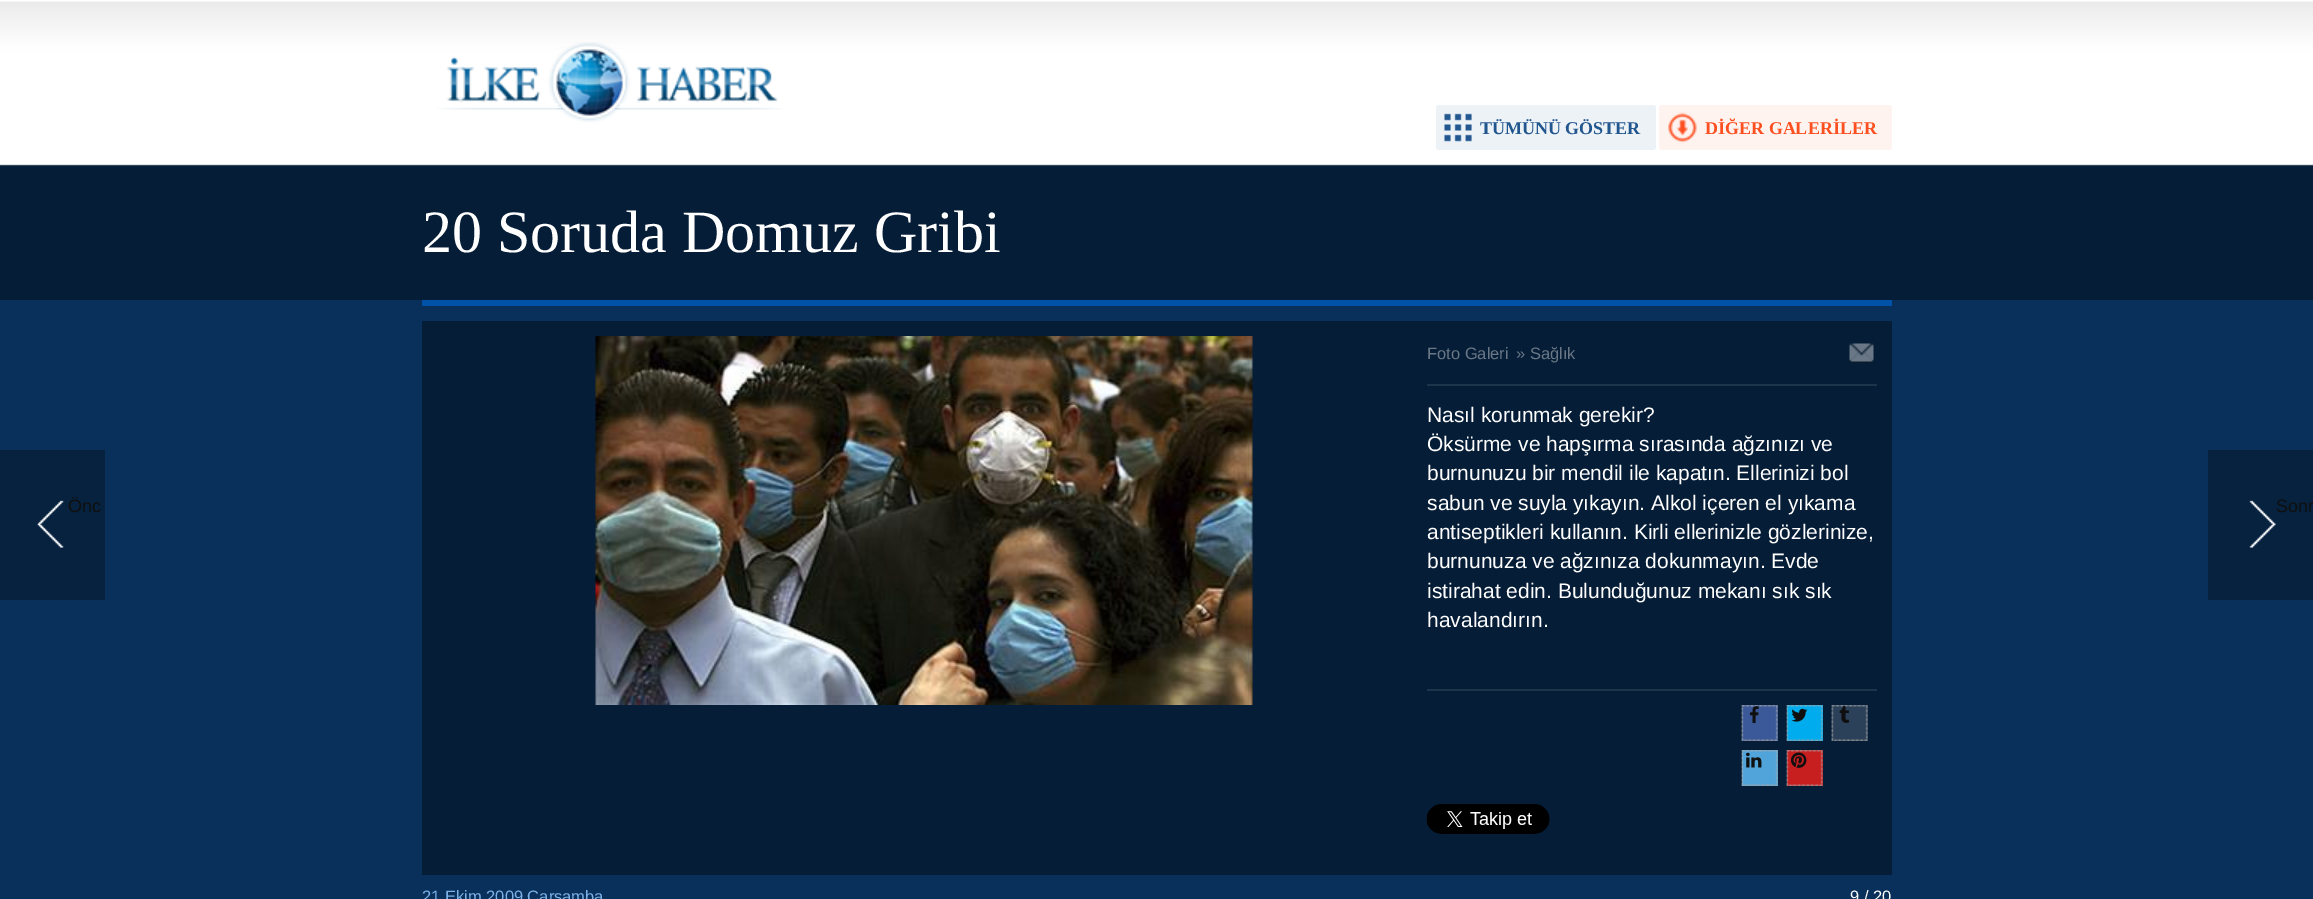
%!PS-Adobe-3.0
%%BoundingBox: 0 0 2313 899
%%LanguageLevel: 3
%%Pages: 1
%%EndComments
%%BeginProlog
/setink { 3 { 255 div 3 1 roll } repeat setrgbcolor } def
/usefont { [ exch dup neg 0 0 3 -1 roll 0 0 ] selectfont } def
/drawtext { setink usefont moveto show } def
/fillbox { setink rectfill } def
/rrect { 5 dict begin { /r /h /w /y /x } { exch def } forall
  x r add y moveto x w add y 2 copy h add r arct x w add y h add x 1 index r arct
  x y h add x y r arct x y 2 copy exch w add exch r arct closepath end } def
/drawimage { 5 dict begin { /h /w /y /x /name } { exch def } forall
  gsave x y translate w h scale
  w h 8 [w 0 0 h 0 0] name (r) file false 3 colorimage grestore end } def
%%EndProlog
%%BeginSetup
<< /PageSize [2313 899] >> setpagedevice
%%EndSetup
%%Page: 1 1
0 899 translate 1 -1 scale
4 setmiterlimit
0 0 2313 899 8 48 90 fillbox
(assets/img1.rgb) 0 0 2313 300 drawimage
0 450 105 150 6 34 63 fillbox
(assets/img2.rgb) 37 500 27 48 drawimage
(Önc) 68 512 /LiberationSans-Regular 18 15 15 15 drawtext
(assets/img3.rgb) 437 42 346 81 drawimage
237 242 247 setink
1436 105 220 45 3 rrect fill
(assets/img4.rgb) 1444 113 28 29 drawimage
(TÜMÜNÜ GÖSTER) 1480 134 /LiberationSerif-Bold 18 33 86 142 drawtext
255 243 239 setink
1659 105 233 45 3 rrect fill
(assets/img5.rgb) 1668 112 29 31 drawimage
(DİĞER GALERİLER) 1705 134 /LiberationSerif-Bold 18 253 79 32 drawtext
422 300 1470 6 0 82 168 fillbox
(20 Soruda Domuz Gribi) 422 252 /LiberationSerif-Regular 60 255 255 255 drawtext
422 321 1470 554 5 29 54 fillbox
(assets/img6.rgb) 595 336 658 369 drawimage
(Foto Galeri) 1427 359 /LiberationSans-Regular 16.5 105 119 134 drawtext
(» Sağlık) 1516 359 /LiberationSans-Regular 16.5 105 119 134 drawtext
(assets/img7.rgb) 1849 343 25 20 drawimage
1427 384 450 2 30 52 74 fillbox
(Nasıl korunmak gerekir?) 1427 422 /LiberationSans-Regular 21 255 255 255 drawtext
(Öksürme ve hapşırma sırasında ağzınızı ve) 1427 451 /LiberationSans-Regular 21 255 255 255 drawtext
(burnunuzu bir mendil ile kapatın. Ellerinizi bol) 1427 480 /LiberationSans-Regular 21 255 255 255 drawtext
(sabun ve suyla yıkayın. Alkol içeren el yıkama) 1427 510 /LiberationSans-Regular 21 255 255 255 drawtext
(antiseptikleri kullanın. Kirli ellerinizle gözlerinize,) 1427 539 /LiberationSans-Regular 21 255 255 255 drawtext
(burnunuza ve ağzınıza dokunmayın. Evde) 1427 568 /LiberationSans-Regular 21 255 255 255 drawtext
(istirahat edin. Bulunduğunuz mekanı sık sık) 1427 598 /LiberationSans-Regular 21 255 255 255 drawtext
(havalandırın.) 1427 627 /LiberationSans-Regular 21 255 255 255 drawtext
1427 689 450 2 30 52 74 fillbox
1742 705 36 36 59 89 152 fillbox
(assets/img8.rgb) 1741 705 37 36 drawimage
(assets/img9.rgb) 1749 706 10 17 drawimage
1787 705 36 36 0 172 237 fillbox
(assets/img10.rgb) 1786 705 37 36 drawimage
(assets/img11.rgb) 1791 708 17 14 drawimage
1832 705 36 36 43 65 89 fillbox
(assets/img12.rgb) 1831 705 37 36 drawimage
(assets/img13.rgb) 1839 706 11 17 drawimage
1742 750 36 36 81 164 218 fillbox
(assets/img14.rgb) 1741 750 37 36 drawimage
(assets/img15.rgb) 1746 752 16 16 drawimage
1787 750 36 36 199 30 32 fillbox
(assets/img16.rgb) 1786 750 37 36 drawimage
(assets/img17.rgb) 1791 752 16 16 drawimage
(assets/img18.rgb) 1426 804 124 30 drawimage
(21 Ekim 2009 Çarşamba) 422 902 /LiberationSans-Regular 16.5 125 178 233 drawtext
(9 / 20) 1850 902 /LiberationSans-Regular 16.5 255 255 255 drawtext
2208 450 105 150 6 34 63 fillbox
(assets/img19.rgb) 2249 500 27 48 drawimage
(Sonr) 2276 512 /LiberationSans-Regular 18 15 15 15 drawtext
showpage
%%EOF
